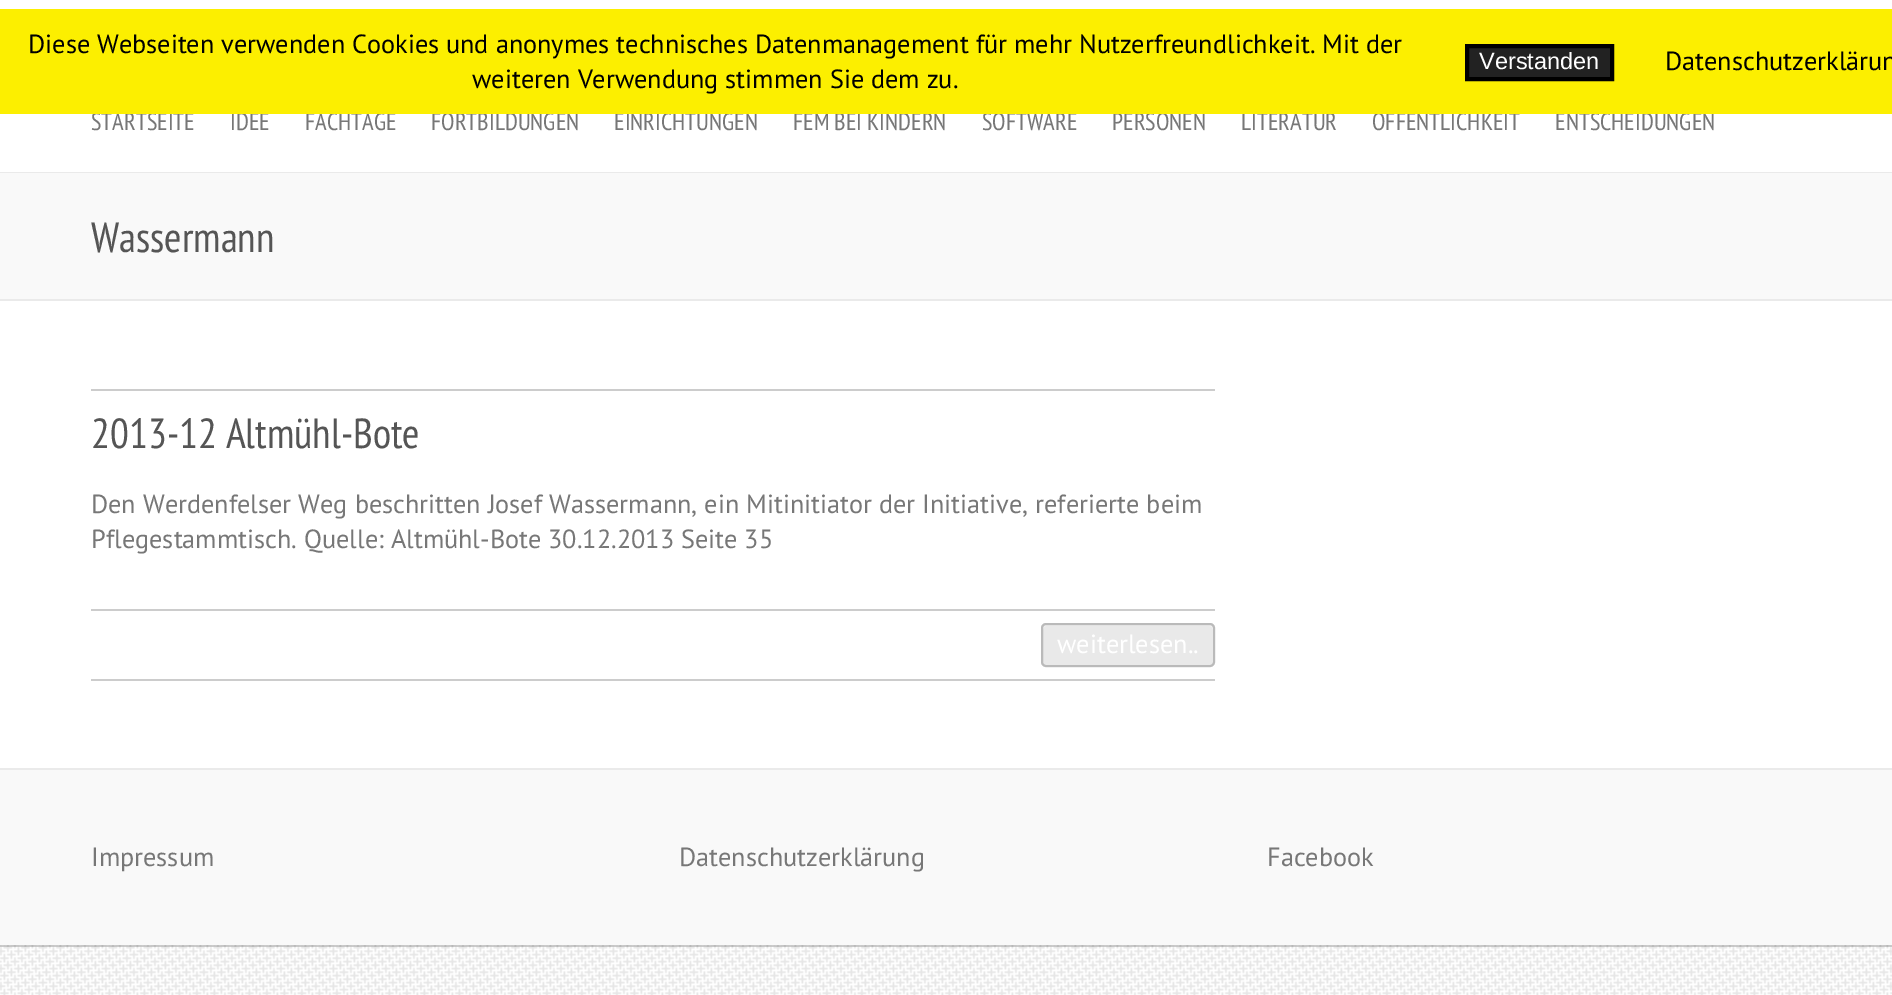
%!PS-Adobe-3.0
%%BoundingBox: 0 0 1892 995
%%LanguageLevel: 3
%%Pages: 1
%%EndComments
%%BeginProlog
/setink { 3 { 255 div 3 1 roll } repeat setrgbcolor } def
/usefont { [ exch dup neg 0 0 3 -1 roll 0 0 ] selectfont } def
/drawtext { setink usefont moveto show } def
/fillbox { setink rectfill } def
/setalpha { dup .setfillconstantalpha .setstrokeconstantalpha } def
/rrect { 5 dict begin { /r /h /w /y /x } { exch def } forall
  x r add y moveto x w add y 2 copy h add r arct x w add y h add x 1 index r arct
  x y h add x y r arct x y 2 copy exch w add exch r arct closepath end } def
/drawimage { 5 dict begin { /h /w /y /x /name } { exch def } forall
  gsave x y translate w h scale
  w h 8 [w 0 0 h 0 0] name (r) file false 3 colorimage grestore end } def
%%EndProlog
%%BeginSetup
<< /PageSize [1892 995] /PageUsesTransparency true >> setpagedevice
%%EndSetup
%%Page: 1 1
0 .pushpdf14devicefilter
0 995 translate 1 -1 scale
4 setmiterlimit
0 0 1892 995 255 255 255 fillbox
(STARTSEITE) 91 130 /PTSansNarrow-Regular 24.5 119 119 119 drawtext
(IDEE) 230 130 /PTSansNarrow-Regular 24.5 119 119 119 drawtext
(FACHTAGE) 305 130 /PTSansNarrow-Regular 24.5 119 119 119 drawtext
(FORTBILDUNGEN) 431 130 /PTSansNarrow-Regular 24.5 119 119 119 drawtext
(EINRICHTUNGEN) 614 130 /PTSansNarrow-Regular 24.5 119 119 119 drawtext
(FEM BEI KINDERN) 793 130 /PTSansNarrow-Regular 24.5 119 119 119 drawtext
(SOFTWARE) 982 130 /PTSansNarrow-Regular 24.5 119 119 119 drawtext
(PERSONEN) 1112 130 /PTSansNarrow-Regular 24.5 119 119 119 drawtext
(LITERATUR) 1241 130 /PTSansNarrow-Regular 24.5 119 119 119 drawtext
(ÖFFENTLICHKEIT) 1372 130 /PTSansNarrow-Regular 24.5 119 119 119 drawtext
(ENTSCHEIDUNGEN) 1555 130 /PTSansNarrow-Regular 24.5 119 119 119 drawtext
0 9 1892 105 252 239 0 fillbox
(Diese Webseiten verwenden Cookies und anonymes technisches Datenmanagement für mehr Nutzerfreundlichkeit. Mit der) 28 53 /PTSans-Regular 26.25 0 0 0 drawtext
(weiteren Verwendung stimmen Sie dem zu.) 472 88 /PTSans-Regular 26.25 0 0 0 drawtext
34 34 34 setink
1467 46 moveto 1612 46 lineto 1612 79 lineto 1467 79 lineto closepath gsave fill grestore
0 0 0 setink
4 setlinewidth
stroke
(Verstanden) 1479 69 /LiberationSans-Regular 23.5 255 255 255 drawtext
(Datenschutzerklärun) 1665 70 /PTSans-Regular 26.25 0 0 0 drawtext
0 172 1892 1 234 234 234 fillbox
0 173 1892 126 249 249 249 fillbox
0 299 1892 2 234 234 234 fillbox
(Wassermann) 91 252 /PTSansNarrow-Regular 42 85 85 85 drawtext
91 389 1124 2 204 204 204 fillbox
(2013-12 Altmühl-Bote) 91 448 /PTSansNarrow-Regular 42 85 85 85 drawtext
(Den Werdenfelser Weg beschritten Josef Wassermann, ein Mitinitiator der Initiative, referierte beim) 91 513 /PTSans-Regular 26.25 119 119 119 drawtext
(Pflegestammtisch. Quelle: Altmühl-Bote 30.12.2013 Seite 35) 91 548 /PTSans-Regular 26.25 119 119 119 drawtext
91 609 1124 2 204 204 204 fillbox
91 679 1124 2 204 204 204 fillbox
233 233 233 setink
1041 623 174 44 5 rrect fill
240 240 240 setink
1046 626 moveto 1209 626 lineto 1211 626 1213 628 1213 630 curveto 1213 629 lineto 1213 627 1211 625 1209 625 curveto 1047 625 lineto 1045 625 1043 627 1043 629 curveto 1043 630 lineto 1043 628 1045 626 1046 626 curveto closepath fill
0.2 setalpha
0 0 0 setink
2 setlinewidth
1042 624 172 42 4 rrect stroke
1 setalpha
(weiterlesen..) 1057 653 /PTSans-Regular 26.25 255 255 255 drawtext
0 770 1892 175 249 249 249 fillbox
0 768 1892 2 234 234 234 fillbox
(Impressum) 91 866 /PTSans-Regular 26.25 119 119 119 drawtext
(Datenschutzerklärung) 679 866 /PTSans-Regular 26.25 119 119 119 drawtext
(Facebook) 1267 866 /PTSans-Regular 26.25 119 119 119 drawtext
(assets/img1.rgb) 0 945 1892 50 drawimage
0.2 setalpha
0 945 1892 2 0 0 0 fillbox
.poppdf14devicefilter showpage
%%EOF
